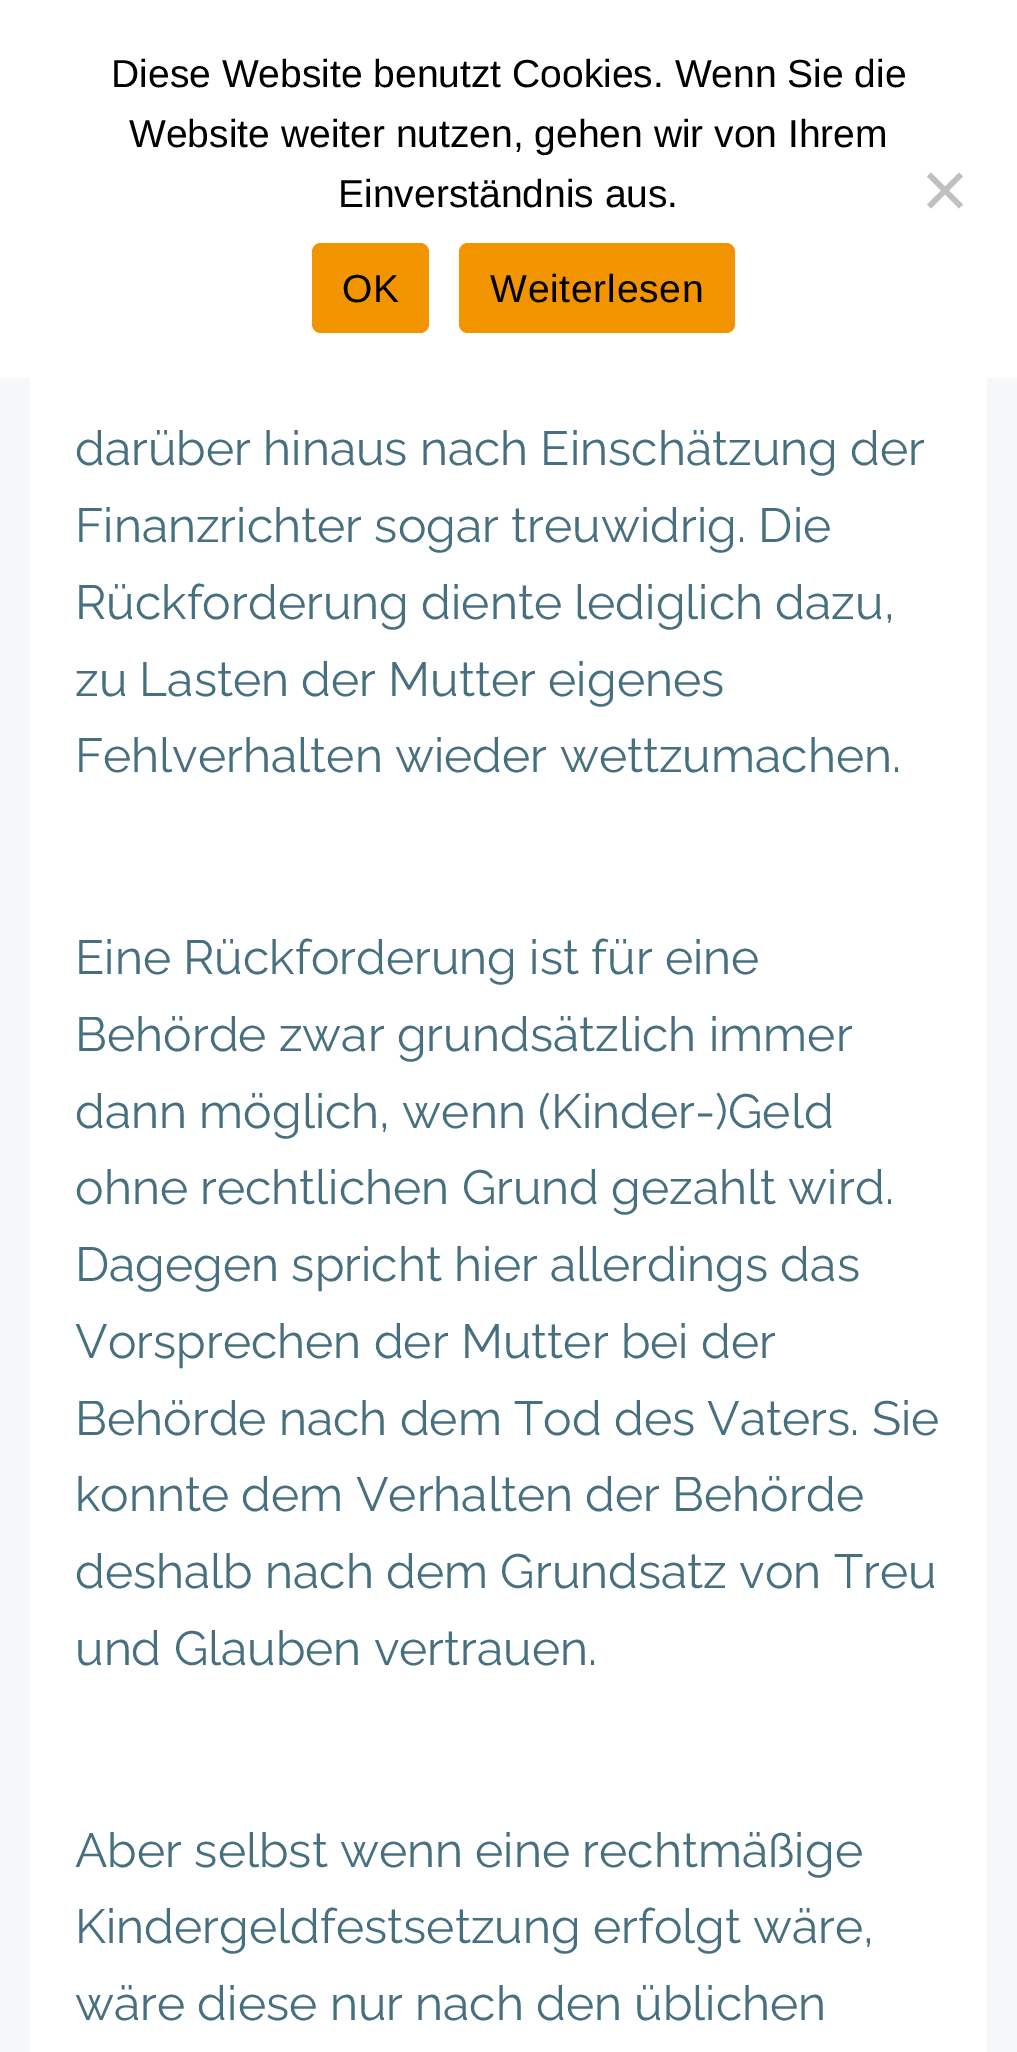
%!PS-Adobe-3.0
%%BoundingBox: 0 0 1017 2052
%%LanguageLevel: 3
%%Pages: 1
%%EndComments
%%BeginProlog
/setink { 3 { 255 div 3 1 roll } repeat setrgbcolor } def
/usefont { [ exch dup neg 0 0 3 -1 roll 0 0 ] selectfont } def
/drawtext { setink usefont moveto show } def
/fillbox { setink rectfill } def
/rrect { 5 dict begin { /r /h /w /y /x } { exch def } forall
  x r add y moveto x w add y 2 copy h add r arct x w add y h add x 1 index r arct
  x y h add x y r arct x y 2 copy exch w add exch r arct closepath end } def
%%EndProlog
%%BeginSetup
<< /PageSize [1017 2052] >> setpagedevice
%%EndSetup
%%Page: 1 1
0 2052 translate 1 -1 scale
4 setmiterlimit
0 0 1017 2052 245 247 248 fillbox
0 0 1017 378 255 255 255 fillbox
(Diese Website benutzt Cookies. Wenn Sie die) 111 87 /LiberationSans-Regular 39 0 0 0 drawtext
(Website weiter nutzen, gehen wir von Ihrem) 129 147 /LiberationSans-Regular 39 0 0 0 drawtext
(Einverständnis aus.) 338 207 /LiberationSans-Regular 39 0 0 0 drawtext
192 192 192 setink
959 172.5 moveto 963 176.5 lineto 931 208.5 lineto 927 204.5 lineto closepath fill
927 176.5 moveto 931 172.5 lineto 963 204.5 lineto 959 208.5 lineto closepath fill
242 148 0 setink
312 243 117 90 9 rrect fill
0 0 0 setink
342 302 moveto 0.75 0 (OK) ashow
242 148 0 setink
459 243 276 90 9 rrect fill
0 0 0 setink
490 302 moveto 0.75 0 (Weiterlesen) ashow
30 378 957 1674 255 255 255 fillbox
(darüber hinaus nach Einschätzung der) 75 465 /Raleway-Regular 48 70 112 127 drawtext
(Finanzrichter sogar treuwidrig. Die) 75 542 /Raleway-Regular 48 70 112 127 drawtext
(Rückforderung diente lediglich dazu,) 75 619 /Raleway-Regular 48 70 112 127 drawtext
(zu Lasten der Mutter eigenes) 75 696 /Raleway-Regular 48 70 112 127 drawtext
(Fehlverhalten wieder wettzumachen.) 75 772 /Raleway-Regular 48 70 112 127 drawtext
(Eine Rückforderung ist für eine) 75 974 /Raleway-Regular 48 70 112 127 drawtext
(Behörde zwar grundsätzlich immer) 75 1051 /Raleway-Regular 48 70 112 127 drawtext
(dann möglich, wenn \(Kinder-\)Geld) 75 1128 /Raleway-Regular 48 70 112 127 drawtext
(ohne rechtlichen Grund gezahlt wird.) 75 1204 /Raleway-Regular 48 70 112 127 drawtext
(Dagegen spricht hier allerdings das) 75 1281 /Raleway-Regular 48 70 112 127 drawtext
(Vorsprechen der Mutter bei der) 75 1358 /Raleway-Regular 48 70 112 127 drawtext
(Behörde nach dem Tod des Vaters. Sie) 75 1435 /Raleway-Regular 48 70 112 127 drawtext
(konnte dem Verhalten der Behörde) 75 1511 /Raleway-Regular 48 70 112 127 drawtext
(deshalb nach dem Grundsatz von Treu) 75 1588 /Raleway-Regular 48 70 112 127 drawtext
(und Glauben vertrauen.) 75 1665 /Raleway-Regular 48 70 112 127 drawtext
(Aber selbst wenn eine rechtmäßige) 75 1867 /Raleway-Regular 48 70 112 127 drawtext
(Kindergeldfestsetzung erfolgt wäre,) 75 1943 /Raleway-Regular 48 70 112 127 drawtext
(wäre diese nur nach den üblichen) 75 2020 /Raleway-Regular 48 70 112 127 drawtext
showpage
%%EOF
